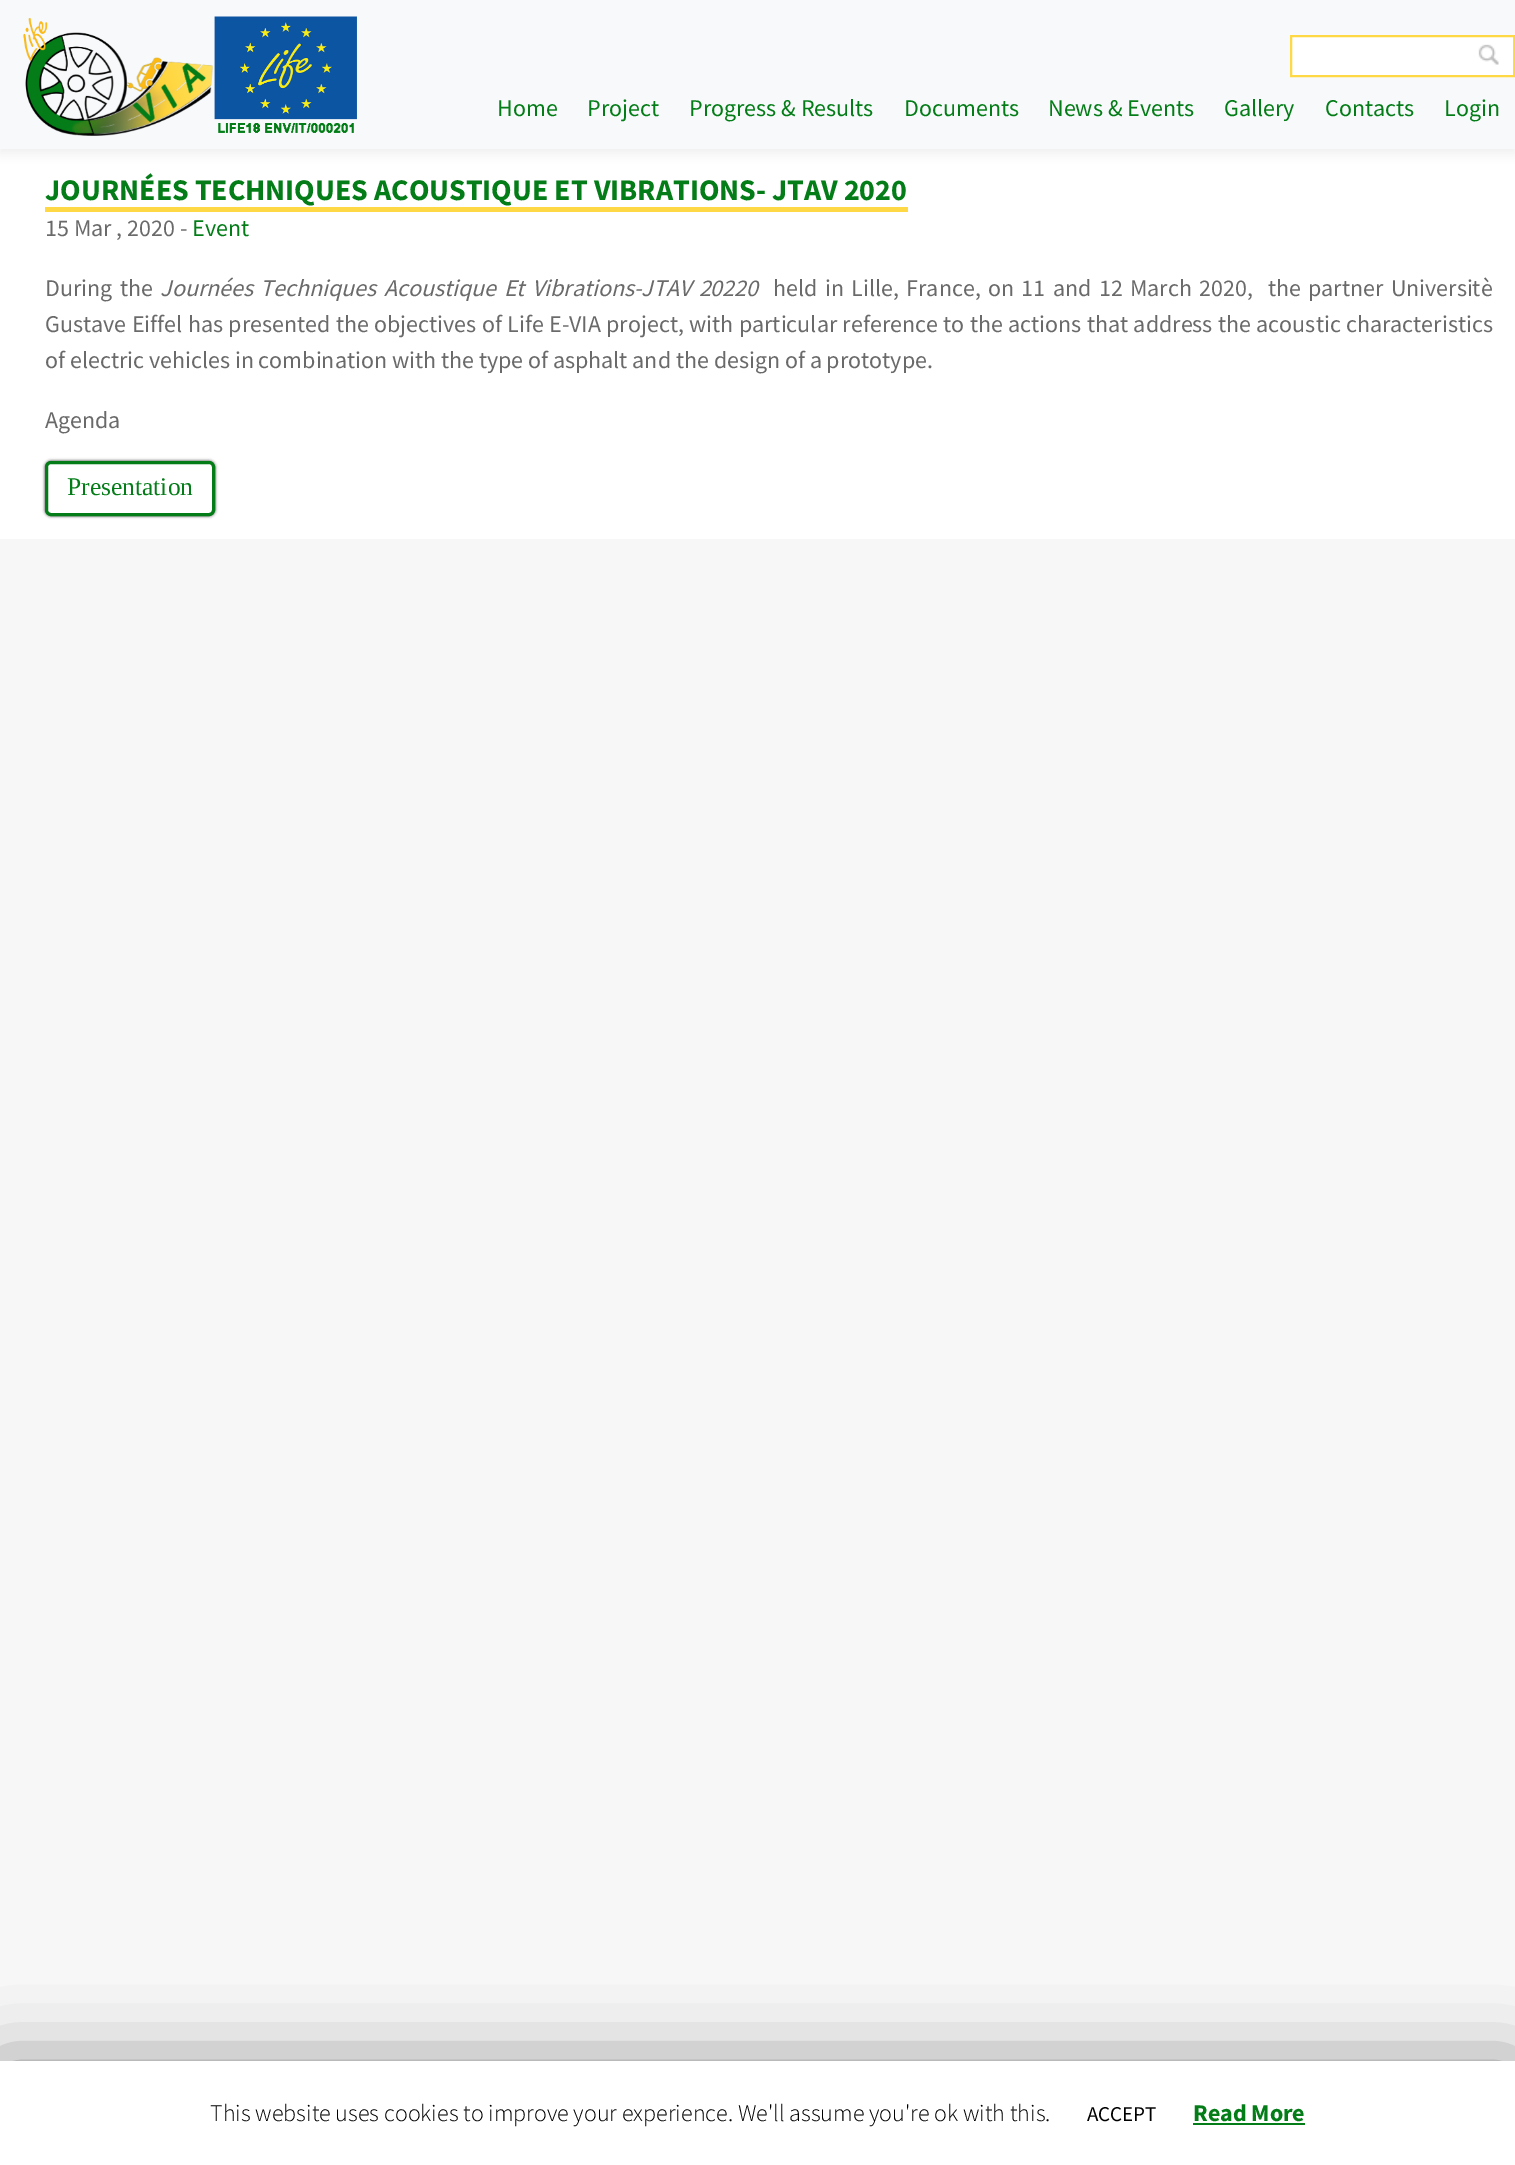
%!PS-Adobe-3.0
%%BoundingBox: 0 0 1515 2165
%%LanguageLevel: 3
%%Pages: 1
%%EndComments
%%BeginProlog
/setink { 3 { 255 div 3 1 roll } repeat setrgbcolor } def
/usefont { [ exch dup neg 0 0 3 -1 roll 0 0 ] selectfont } def
/drawtext { setink usefont moveto show } def
/fillbox { setink rectfill } def
/setalpha { dup .setfillconstantalpha .setstrokeconstantalpha } def
/rrect { 5 dict begin { /r /h /w /y /x } { exch def } forall
  x r add y moveto x w add y 2 copy h add r arct x w add y h add x 1 index r arct
  x y h add x y r arct x y 2 copy exch w add exch r arct closepath end } def
/softshadow { 12 dict begin { /a /b /q /h /w /y /x } { exch def } forall gsave /was 0 def
  9 -2 -9 { dup b mul 4 div /e exch def 1 sub .425 mul 2.718 exch exp 1 add a .99 .min exch div /now exch def
    1 1 now sub 1 was sub div sub setalpha /was now def
    w h .min e 2 mul add 0 gt { x e sub y e sub w e 2 mul add h e 2 mul add
      q e add b .6 mul add w h .min 2 div e add .min 0 .max rrect fill } if } for grestore end } def
/drawimage { 5 dict begin { /h /w /y /x /name } { exch def } forall
  gsave x y translate w h scale
  w h 8 [w 0 0 h 0 0] name (r) file false 3 colorimage grestore end } def
%%EndProlog
%%BeginSetup
<< /PageSize [1515 2165] /PageUsesTransparency true >> setpagedevice
%%EndSetup
%%Page: 1 1
0 .pushpdf14devicefilter
0 2165 translate 1 -1 scale
4 setmiterlimit
0 0 1515 2165 255 255 255 fillbox
50 50 50 setink
0 5 1515 148 0 5 0.08 softshadow
0 0 1515 149 248 249 250 fillbox
(assets/img1.rgb) 23 18 191 118 drawimage
(assets/img2.rgb) 214 16 143 117 drawimage
255 255 255 setink
1291 36 moveto 1514 36 lineto 1514 76 lineto 1291 76 lineto closepath gsave fill grestore
255 216 69 setink
2 setlinewidth
stroke
(assets/img3.rgb) 1478 44 21 21 drawimage
(Home) 497 116 /SourceSansPro-Regular 24 4 125 24 drawtext
(Project) 587 116 /SourceSansPro-Regular 24 4 125 24 drawtext
(Progress & Results) 689 116 /SourceSansPro-Regular 24 4 125 24 drawtext
(Documents) 904 116 /SourceSansPro-Regular 24 4 125 24 drawtext
(News & Events) 1048 116 /SourceSansPro-Regular 24 4 125 24 drawtext
(Gallery) 1224 116 /SourceSansPro-Regular 24 4 125 24 drawtext
(Contacts) 1325 116 /SourceSansPro-Regular 24 4 125 24 drawtext
(Login) 1444 116 /SourceSansPro-Regular 24 4 125 24 drawtext
(JOURNÉES TECHNIQUES ACOUSTIQUE ET VIBRATIONS- JTAV 2020) 45 200 /SourceSansPro-Bold 30 4 125 24 drawtext
45 207 863 5 255 216 69 fillbox
(15 Mar , 2020 -) 45 236 /SourceSansPro-Regular 24 106 106 106 drawtext
(Event) 192 236 /SourceSansPro-Regular 24 4 125 24 drawtext
106 106 106 setink
45 296 moveto 2.6 0 32 (During the) widthshow
/SourceSansPro-Italic 24 usefont
160 296 moveto 2.6 0 32 (Journées Techniques Acoustique Et Vibrations-JTAV 20220) widthshow
/SourceSansPro-Regular 24 usefont
773 296 moveto 2.6 0 32 (held in Lille, France, on 11 and 12 March 2020,  the partner Universitè) widthshow
45 332 moveto 0.6 0 32 (Gustave Eiffel has presented the objectives of Life E-VIA project, with particular reference to the actions that address the acoustic characteristics) widthshow
(of electric vehicles in combination with the type of asphalt and the design of a prototype.) 45 368 /SourceSansPro-Regular 24 106 106 106 drawtext
(Agenda) 45 428 /SourceSansPro-Regular 24 106 106 106 drawtext
51 51 51 setink
45 461 170 55 6 1.5 1 softshadow
255 255 255 setink
46.5 462.5 167 52 4.5 rrect gsave fill grestore
4 125 24 setink
3 setlinewidth
stroke
(Presentation) 67 495 /LiberationSerif-Regular 25.5 4 125 24 drawtext
0 539 1515 1522 247 247 247 fillbox
0 0 0 setink
0 2069 1515 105 0 37.5 0.5 softshadow
0 2061 1515 104 255 255 255 fillbox
(This website uses cookies to improve your experience. We'll assume you're ok with this.) 210 2121 /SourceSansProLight-Light 24 0 0 0 drawtext
(ACCEPT) 1087 2121 /SourceSansPro-Regular 21 0 0 0 drawtext
(Read More) 1193 2121 /SourceSansPro-Bold 24 4 125 24 drawtext
1193 2123 112 2 4 125 24 fillbox
.poppdf14devicefilter showpage
%%EOF
